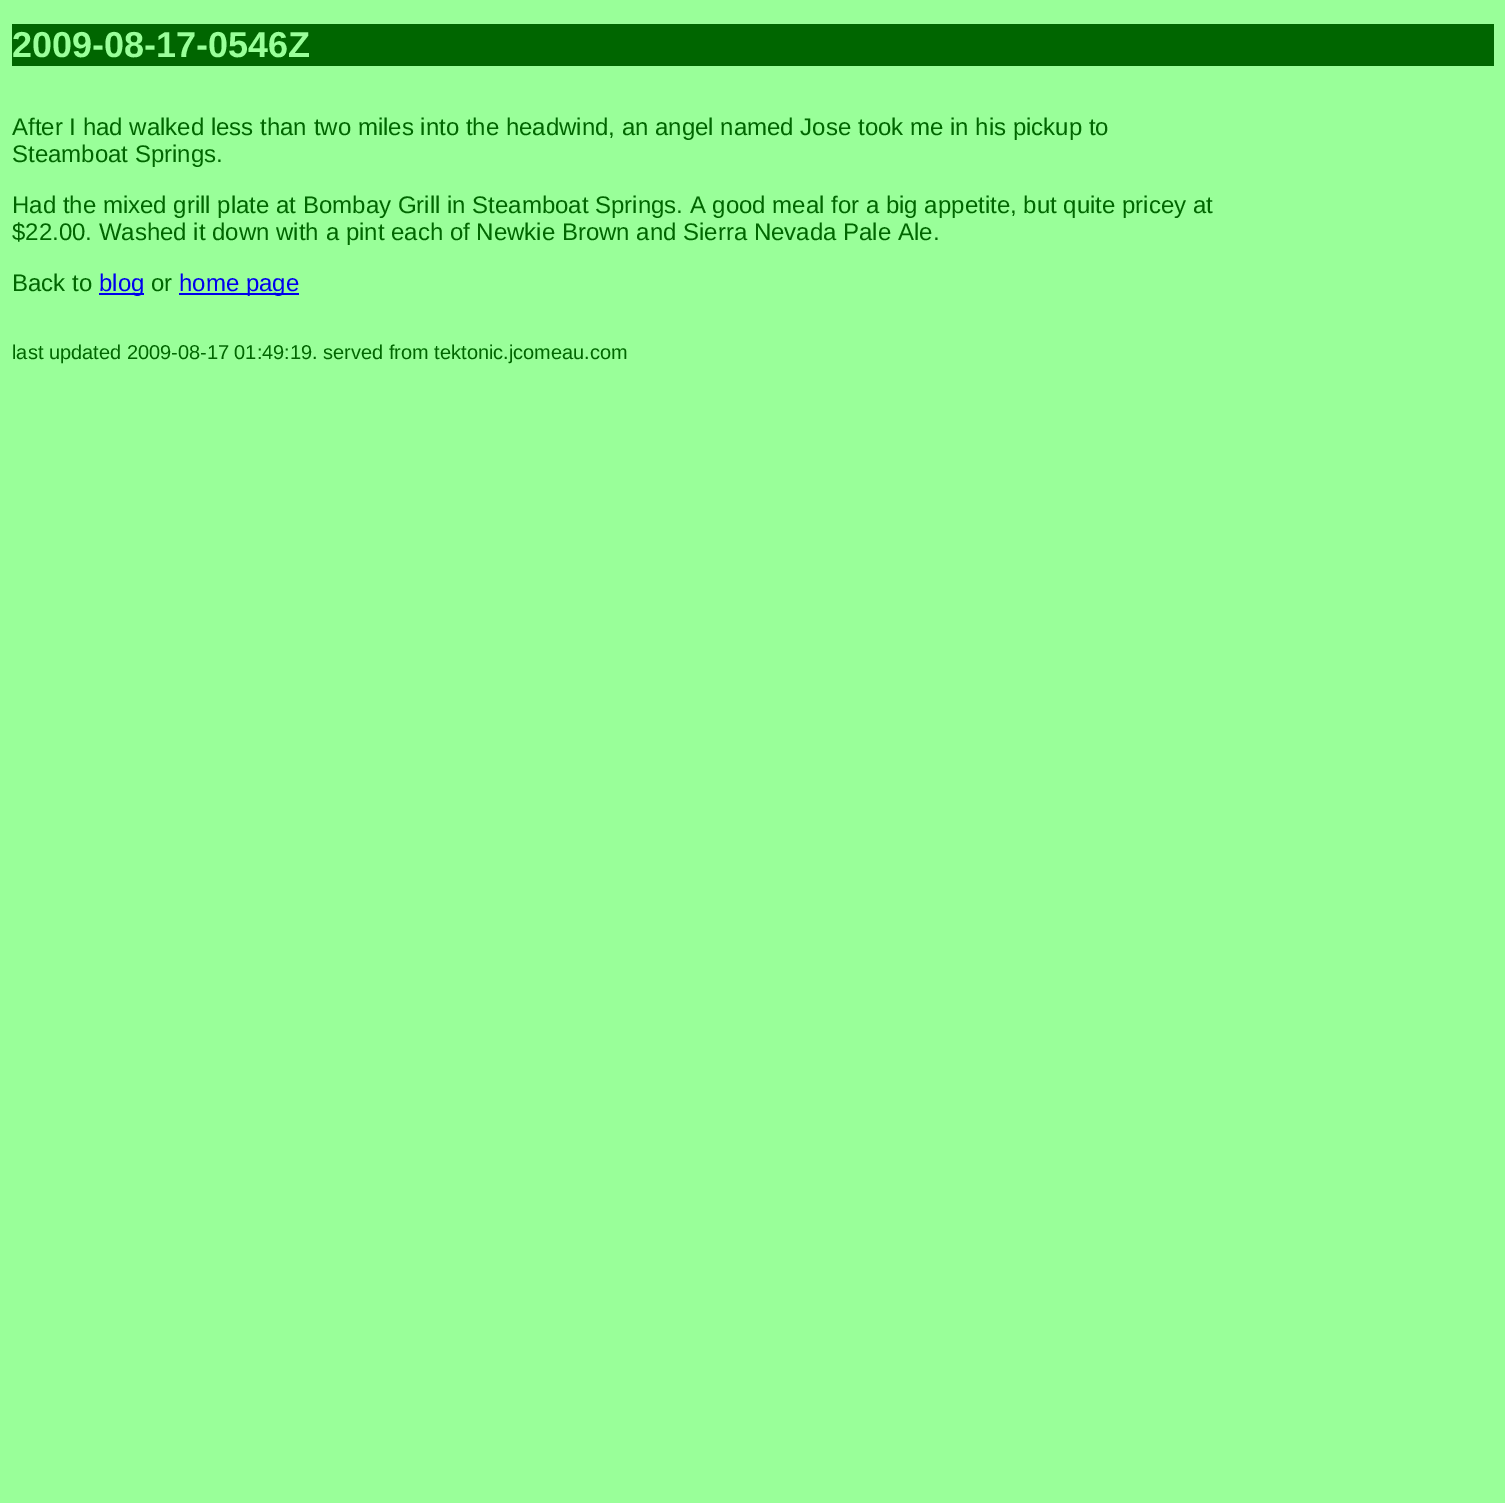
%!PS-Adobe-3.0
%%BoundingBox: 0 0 1505 1503
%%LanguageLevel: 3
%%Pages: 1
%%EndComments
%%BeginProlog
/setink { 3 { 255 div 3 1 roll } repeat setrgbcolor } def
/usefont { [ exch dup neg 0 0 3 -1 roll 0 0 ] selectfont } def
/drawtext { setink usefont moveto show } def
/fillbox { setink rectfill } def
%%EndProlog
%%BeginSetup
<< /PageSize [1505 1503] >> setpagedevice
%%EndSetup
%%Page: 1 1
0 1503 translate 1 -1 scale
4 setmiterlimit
0 0 1505 1503 153 255 153 fillbox
12 24 1482 42 0 102 0 fillbox
(2009-08-17-0546Z) 12 57 /LiberationSans-Bold 36 153 255 153 drawtext
(After I had walked less than two miles into the headwind, an angel named Jose took me in his pickup to) 12 135 /LiberationSans-Regular 24 0 102 0 drawtext
(Steamboat Springs.) 12 162 /LiberationSans-Regular 24 0 102 0 drawtext
(Had the mixed grill plate at Bombay Grill in Steamboat Springs. A good meal for a big appetite, but quite pricey at) 12 213 /LiberationSans-Regular 24 0 102 0 drawtext
($22.00. Washed it down with a pint each of Newkie Brown and Sierra Nevada Pale Ale.) 12 240 /LiberationSans-Regular 24 0 102 0 drawtext
(Back to) 12 291 /LiberationSans-Regular 24 0 102 0 drawtext
99 293 45 2 0 0 238 fillbox
(blog) 99 291 /LiberationSans-Regular 24 0 0 238 drawtext
(or) 151 291 /LiberationSans-Regular 24 0 102 0 drawtext
179 293 120 2 0 0 238 fillbox
(home page) 179 291 /LiberationSans-Regular 24 0 0 238 drawtext
(last updated 2009-08-17 01:49:19. served from tektonic.jcomeau.com) 12 359 /LiberationSans-Regular 20 0 102 0 drawtext
showpage
%%EOF
